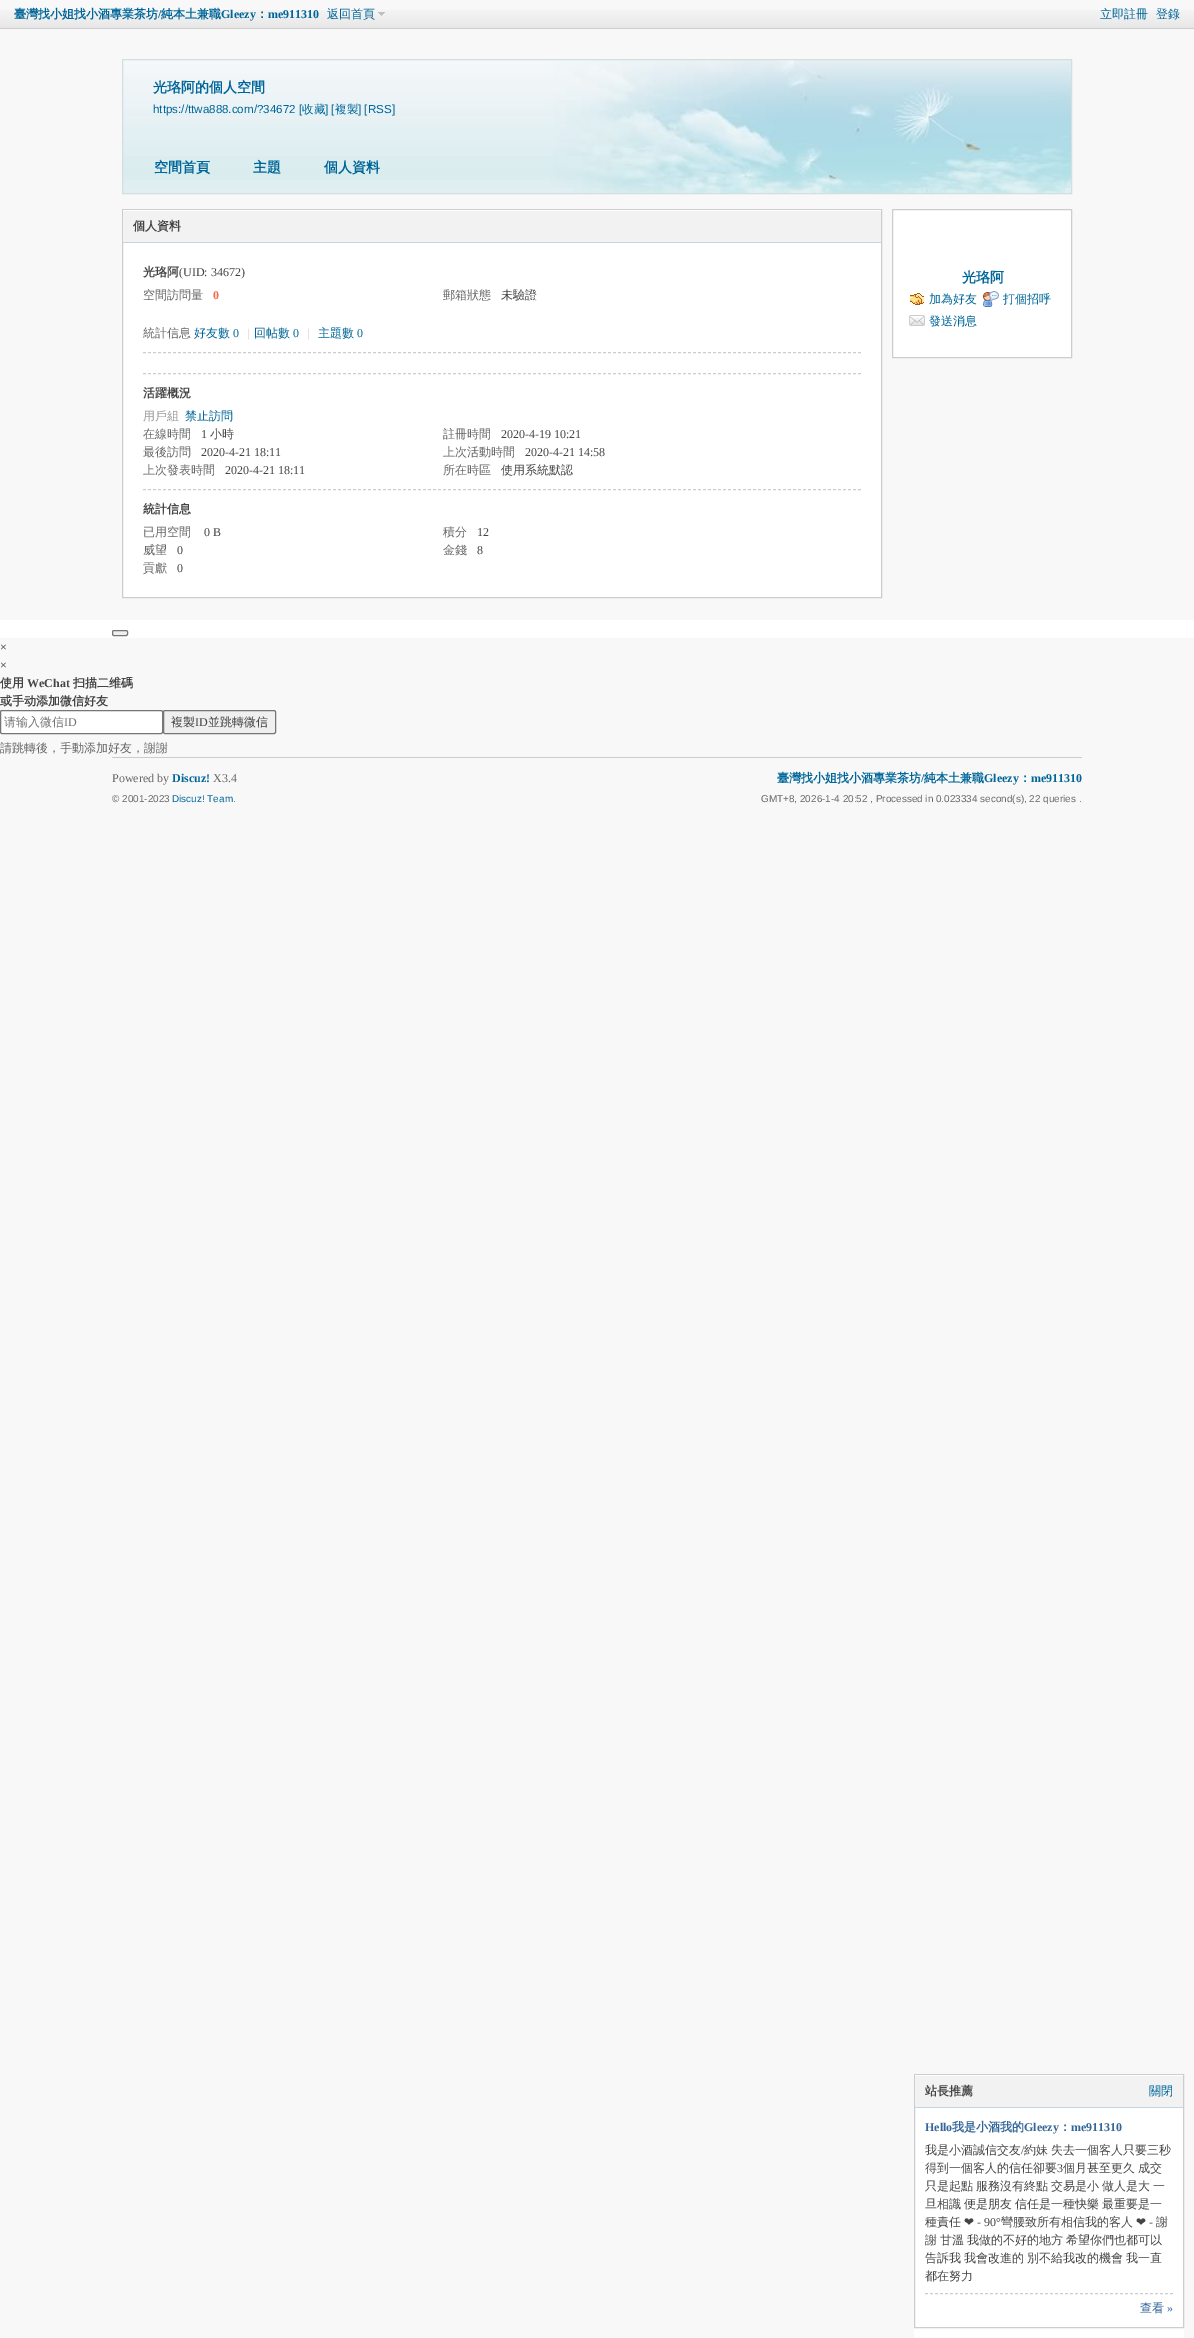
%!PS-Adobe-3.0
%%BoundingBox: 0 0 1194 2338
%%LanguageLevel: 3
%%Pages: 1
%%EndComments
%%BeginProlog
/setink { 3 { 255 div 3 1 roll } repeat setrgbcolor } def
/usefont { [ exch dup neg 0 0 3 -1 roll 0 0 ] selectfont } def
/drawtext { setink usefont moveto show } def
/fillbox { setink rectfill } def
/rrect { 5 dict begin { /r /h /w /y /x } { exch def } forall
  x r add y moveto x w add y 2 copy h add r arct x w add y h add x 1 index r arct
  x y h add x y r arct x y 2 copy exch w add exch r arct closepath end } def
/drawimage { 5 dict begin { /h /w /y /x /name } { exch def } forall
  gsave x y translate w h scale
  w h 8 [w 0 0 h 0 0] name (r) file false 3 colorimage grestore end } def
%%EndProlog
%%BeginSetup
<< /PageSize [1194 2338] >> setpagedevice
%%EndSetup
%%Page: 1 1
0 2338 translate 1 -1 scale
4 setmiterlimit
0 0 1194 2338 248 248 248 fillbox
(assets/img1.rgb) 0 10 1194 18 drawimage
0 28 1194 1 205 205 205 fillbox
(臺灣找小姐找小酒專業茶坊) 14 18 /WenQuanYiZenHei-Bold 12 0 102 153 drawtext
(/) 158 18 /LiberationSerif-Bold 12 0 102 153 drawtext
(純本土兼職) 161 18 /WenQuanYiZenHei-Bold 12 0 102 153 drawtext
(Gleezy) 221 18 /LiberationSerif-Bold 12 0 102 153 drawtext
(：) 256 18 /WenQuanYiZenHei-Bold 12 0 102 153 drawtext
(me911310) 268 18 /LiberationSerif-Bold 12 0 102 153 drawtext
(assets/img2.rgb) 378 12 7 4 drawimage
(返回首頁) 327 18 /WenQuanYiZenHei-Medium 12 0 102 153 drawtext
(立即註冊) 1100 18 /WenQuanYiZenHei-Medium 12 0 102 153 drawtext
(登錄) 1156 18 /WenQuanYiZenHei-Medium 12 0 102 153 drawtext
(assets/img3.rgb) 123 60 948 133 drawimage
211 223 223 setink
122.5 59.5 949 134 rectstroke
(光珞阿的個人空間) 153 92 /WenQuanYiZenHei-Bold 14 0 102 153 drawtext
(https://ttwa888.com/?34672 [) 153 113 /LiberationSans-Regular 11.6 0 102 153 drawtext
(收藏) 302 113 /WenQuanYiZenHei-Medium 11.6 0 102 153 drawtext
(] [) 325 113 /LiberationSans-Regular 11.6 0 102 153 drawtext
(複製) 335 113 /WenQuanYiZenHei-Medium 11.6 0 102 153 drawtext
(] [RSS]) 358 113 /LiberationSans-Regular 11.6 0 102 153 drawtext
(空間首頁) 154 172 /WenQuanYiZenHei-Bold 14 0 102 153 drawtext
(主題) 253 172 /WenQuanYiZenHei-Bold 14 0 102 153 drawtext
(個人資料) 324 172 /WenQuanYiZenHei-Bold 14 0 102 153 drawtext
123 243 758 354 255 255 255 fillbox
205 205 205 setink
122.5 209.5 759 388 rectstroke
123 211 758 31 242 242 242 fillbox
123 210 758 1 255 255 255 fillbox
123 242 758 1 194 213 227 fillbox
(個人資料) 133 230 /WenQuanYiZenHei-Bold 12 68 68 68 drawtext
205 205 205 setink
[3 2] 0 setdash
143 373.5 moveto 861 373.5 lineto stroke
(光珞阿) 143 276 /WenQuanYiZenHei-Bold 12 68 68 68 drawtext
(\(UID: 34672\)) 179 276 /LiberationSerif-Regular 12 68 68 68 drawtext
(空間訪問量) 143 299 /WenQuanYiZenHei-Medium 12 102 102 102 drawtext
(0) 213 299 /LiberationSerif-Bold 12 242 108 79 drawtext
(郵箱狀態) 443 299 /WenQuanYiZenHei-Medium 12 102 102 102 drawtext
(未驗證) 501 299 /WenQuanYiZenHei-Medium 12 68 68 68 drawtext
205 205 205 setink
143 352.5 moveto 861 352.5 lineto stroke
(統計信息) 143 337 /WenQuanYiZenHei-Medium 12 102 102 102 drawtext
(好友數) 194 337 /WenQuanYiZenHei-Medium 12 0 102 153 drawtext
(0) 233 337 /LiberationSerif-Regular 12 0 102 153 drawtext
(|) 247 337 /LiberationSerif-Regular 12 204 204 204 drawtext
(回帖數) 254 337 /WenQuanYiZenHei-Medium 12 0 102 153 drawtext
(0) 293 337 /LiberationSerif-Regular 12 0 102 153 drawtext
(|) 307 337 /LiberationSerif-Regular 12 204 204 204 drawtext
(主題數) 318 337 /WenQuanYiZenHei-Medium 12 0 102 153 drawtext
(0) 357 337 /LiberationSerif-Regular 12 0 102 153 drawtext
205 205 205 setink
143 489.5 moveto 861 489.5 lineto stroke
(活躍概況) 143 397 /WenQuanYiZenHei-Bold 12 68 68 68 drawtext
(用戶組) 143 420 /WenQuanYiZenHei-Medium 12 153 153 153 drawtext
(禁止訪問) 185 420 /WenQuanYiZenHei-Medium 12 0 102 153 drawtext
(在線時間) 143 438 /WenQuanYiZenHei-Medium 12 102 102 102 drawtext
(1) 201 438 /LiberationSerif-Regular 12 68 68 68 drawtext
(小時) 210 438 /WenQuanYiZenHei-Medium 12 68 68 68 drawtext
(註冊時間) 443 438 /WenQuanYiZenHei-Medium 12 102 102 102 drawtext
(2020-4-19 10:21) 501 438 /LiberationSerif-Regular 12 68 68 68 drawtext
(最後訪問) 143 456 /WenQuanYiZenHei-Medium 12 102 102 102 drawtext
(2020-4-21 18:11) 201 456 /LiberationSerif-Regular 12 68 68 68 drawtext
(上次活動時間) 443 456 /WenQuanYiZenHei-Medium 12 102 102 102 drawtext
(2020-4-21 14:58) 525 456 /LiberationSerif-Regular 12 68 68 68 drawtext
(上次發表時間) 143 474 /WenQuanYiZenHei-Medium 12 102 102 102 drawtext
(2020-4-21 18:11) 225 474 /LiberationSerif-Regular 12 68 68 68 drawtext
(所在時區) 443 474 /WenQuanYiZenHei-Medium 12 102 102 102 drawtext
(使用系統默認) 501 474 /WenQuanYiZenHei-Medium 12 68 68 68 drawtext
(統計信息) 143 513 /WenQuanYiZenHei-Bold 12 68 68 68 drawtext
(已用空間) 143 536 /WenQuanYiZenHei-Medium 12 102 102 102 drawtext
(0 B) 204 536 /LiberationSerif-Regular 12 68 68 68 drawtext
(積分) 443 536 /WenQuanYiZenHei-Medium 12 102 102 102 drawtext
(12) 477 536 /LiberationSerif-Regular 12 68 68 68 drawtext
(威望) 143 554 /WenQuanYiZenHei-Medium 12 102 102 102 drawtext
(0) 177 554 /LiberationSerif-Regular 12 68 68 68 drawtext
(金錢) 443 554 /WenQuanYiZenHei-Medium 12 102 102 102 drawtext
(8) 477 554 /LiberationSerif-Regular 12 68 68 68 drawtext
(貢獻) 143 572 /WenQuanYiZenHei-Medium 12 102 102 102 drawtext
(0) 177 572 /LiberationSerif-Regular 12 68 68 68 drawtext
255 255 255 setink
892.5 209.5 moveto 1071.5 209.5 lineto 1071.5 357.5 lineto 892.5 357.5 lineto closepath gsave fill grestore
205 205 205 setink
[] 0 setdash
stroke
(光珞阿) 962 282 /WenQuanYiZenHei-Bold 14 0 102 153 drawtext
(assets/img4.rgb) 910 293 14 12 drawimage
(加為好友) 929 303 /WenQuanYiZenHei-Medium 12 0 102 153 drawtext
(assets/img5.rgb) 983 291 16 16 drawimage
(打個招呼) 1003 303 /WenQuanYiZenHei-Medium 12 0 102 153 drawtext
(assets/img6.rgb) 909 315 16 11 drawimage
(發送消息) 929 325 /WenQuanYiZenHei-Medium 12 0 102 153 drawtext
0 620 1194 18 255 255 255 fillbox
239 239 239 setink
112.5 630.5 15 5 1.5 rrect gsave fill grestore
118 118 118 setink
stroke
(×) 0 651 /LiberationSerif-Regular 12 68 68 68 drawtext
(×) 0 669 /LiberationSerif-Regular 12 68 68 68 drawtext
(使用) 0 687 /WenQuanYiZenHei-Bold 12 68 68 68 drawtext
(WeChat) 27 687 /LiberationSerif-Bold 12 68 68 68 drawtext
(扫描二维碼) 73 687 /WenQuanYiZenHei-Bold 12 68 68 68 drawtext
(或手动添加微信好友) 0 705 /WenQuanYiZenHei-Bold 12 68 68 68 drawtext
255 255 255 setink
0.5 710.5 162 23 1.5 rrect gsave fill grestore
118 118 118 setink
stroke
(请输入微信) 4 726 /WenQuanYiZenHei-Medium 12 117 117 117 drawtext
(ID) 64 726 /LiberationSerif-Regular 12 117 117 117 drawtext
239 239 239 setink
163.5 710.5 112 23 1.5 rrect gsave fill grestore
118 118 118 setink
stroke
(複製) 171 726 /WenQuanYiZenHei-Medium 12 68 68 68 drawtext
(ID) 195 726 /LiberationSerif-Regular 12 68 68 68 drawtext
(並跳轉微信) 208 726 /WenQuanYiZenHei-Medium 12 68 68 68 drawtext
(請跳轉後，手動添加好友，謝謝) 0 752 /WenQuanYiZenHei-Medium 12 102 102 102 drawtext
112 757 970 1 204 204 204 fillbox
(Powered by) 112 782 /LiberationSerif-Regular 12 102 102 102 drawtext
(Discuz!) 172 782 /LiberationSerif-Bold 12 0 102 153 drawtext
(X3.4) 213 782 /LiberationSerif-Regular 12 102 102 102 drawtext
(© 2001-2023) 112 802 /LiberationSans-Regular 9.95 102 102 102 drawtext
(Discuz! Team) 172 802 /LiberationSans-Regular 9.95 0 102 153 drawtext
(.) 233 802 /LiberationSans-Regular 9.95 102 102 102 drawtext
(臺灣找小姐找小酒專業茶坊) 777 782 /WenQuanYiZenHei-Bold 12 0 102 153 drawtext
(/) 921 782 /LiberationSerif-Bold 12 0 102 153 drawtext
(純本土兼職) 924 782 /WenQuanYiZenHei-Bold 12 0 102 153 drawtext
(Gleezy) 984 782 /LiberationSerif-Bold 12 0 102 153 drawtext
(：) 1019 782 /WenQuanYiZenHei-Bold 12 0 102 153 drawtext
(me911310) 1031 782 /LiberationSerif-Bold 12 0 102 153 drawtext
(GMT+8, 2026-1-4 20:52 , Processed in 0.023334 second\(s\), 22 queries .) 761 802 /LiberationSans-Regular 9.95 102 102 102 drawtext
914 2108 270 230 255 255 255 fillbox
205 205 205 setink
914.5 2074.5 269 253 rectstroke
915 2076 268 31 242 242 242 fillbox
915 2075 268 1 255 255 255 fillbox
915 2107 268 1 194 213 227 fillbox
(站長推薦) 925 2095 /WenQuanYiZenHei-Bold 12 68 68 68 drawtext
(關閉) 1149 2095 /WenQuanYiZenHei-Medium 12 0 102 153 drawtext
205 205 205 setink
[3 2] 0 setdash
925 2293.5 moveto 1173 2293.5 lineto stroke
(Hello) 925 2131 /LiberationSerif-Bold 12 51 102 153 drawtext
(我是小酒我的) 952 2131 /WenQuanYiZenHei-Bold 12 51 102 153 drawtext
(Gleezy) 1024 2131 /LiberationSerif-Bold 12 51 102 153 drawtext
(：) 1059 2131 /WenQuanYiZenHei-Bold 12 51 102 153 drawtext
(me911310) 1071 2131 /LiberationSerif-Bold 12 51 102 153 drawtext
(我是小酒誠信交友) 925 2154 /WenQuanYiZenHei-Medium 12 68 68 68 drawtext
(/) 1021 2154 /LiberationSerif-Regular 12 68 68 68 drawtext
(約妹) 1024 2154 /WenQuanYiZenHei-Medium 12 68 68 68 drawtext
(失去一個客人只要三秒) 1051 2154 /WenQuanYiZenHei-Medium 12 68 68 68 drawtext
(得到一個客人的信任卻要) 925 2172 /WenQuanYiZenHei-Medium 12 68 68 68 drawtext
(3) 1057 2172 /LiberationSerif-Regular 12 68 68 68 drawtext
/WenQuanYiZenHei-Medium 12 usefont
1063 2172 moveto -0.5 0 32 (個月甚至更久 成交) widthshow
925 2190 moveto -0.5 0 32 (只是起點 服務沒有終點 交易是小 做人是大 一) widthshow
925 2208 moveto -0.5 0 32 (旦相識 便是朋友 信任是一種快樂 最重要是一) widthshow
(種責任) 925 2226 /WenQuanYiZenHei-Medium 12 68 68 68 drawtext
(❤) 964 2226 /DejaVuSans-Regular 12 68 68 68 drawtext
(- 90°) 977 2226 /LiberationSerif-Regular 12 68 68 68 drawtext
(彎腰致所有相信我的客人) 1001 2226 /WenQuanYiZenHei-Medium 12 68 68 68 drawtext
(❤) 1136 2226 /DejaVuSans-Regular 12 68 68 68 drawtext
(-) 1149 2226 /LiberationSerif-Regular 12 68 68 68 drawtext
(謝) 1156 2226 /WenQuanYiZenHei-Medium 12 68 68 68 drawtext
925 2244 moveto -0.5 0 32 (謝 甘溫) widthshow
967 2244 moveto -0.5 0 32 (我做的不好的地方 希望你們也都可以) widthshow
925 2262 moveto -0.5 0 32 (告訴我 我會改進的) widthshow
1027 2262 moveto -0.5 0 32 (別不給我改的機會 我一直) widthshow
(都在努力) 925 2280 /WenQuanYiZenHei-Medium 12 68 68 68 drawtext
(查看) 1140 2312 /WenQuanYiZenHei-Medium 12 51 102 153 drawtext
(») 1167 2312 /LiberationSerif-Regular 12 51 102 153 drawtext
showpage
%%EOF
